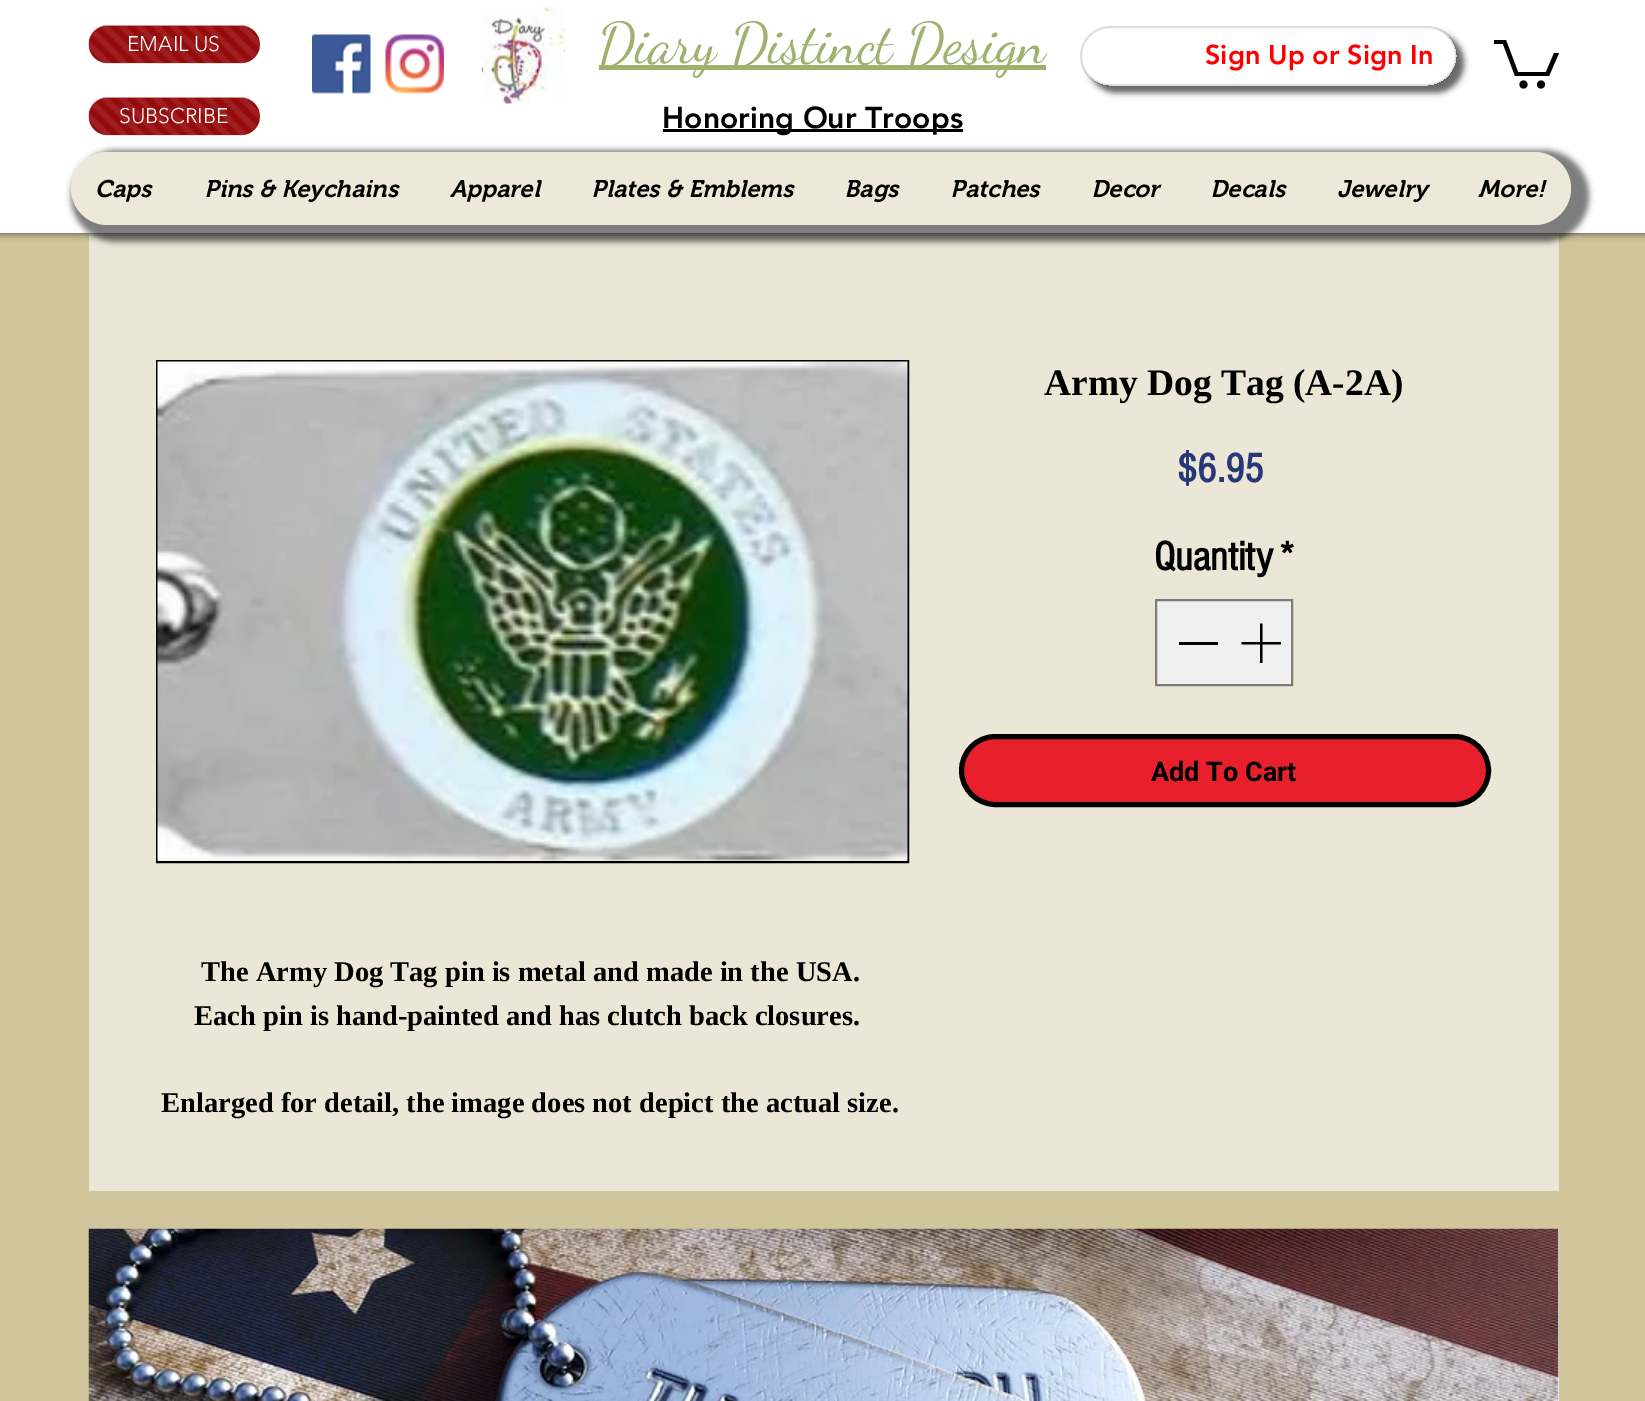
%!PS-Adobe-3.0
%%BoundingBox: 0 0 1645 1401
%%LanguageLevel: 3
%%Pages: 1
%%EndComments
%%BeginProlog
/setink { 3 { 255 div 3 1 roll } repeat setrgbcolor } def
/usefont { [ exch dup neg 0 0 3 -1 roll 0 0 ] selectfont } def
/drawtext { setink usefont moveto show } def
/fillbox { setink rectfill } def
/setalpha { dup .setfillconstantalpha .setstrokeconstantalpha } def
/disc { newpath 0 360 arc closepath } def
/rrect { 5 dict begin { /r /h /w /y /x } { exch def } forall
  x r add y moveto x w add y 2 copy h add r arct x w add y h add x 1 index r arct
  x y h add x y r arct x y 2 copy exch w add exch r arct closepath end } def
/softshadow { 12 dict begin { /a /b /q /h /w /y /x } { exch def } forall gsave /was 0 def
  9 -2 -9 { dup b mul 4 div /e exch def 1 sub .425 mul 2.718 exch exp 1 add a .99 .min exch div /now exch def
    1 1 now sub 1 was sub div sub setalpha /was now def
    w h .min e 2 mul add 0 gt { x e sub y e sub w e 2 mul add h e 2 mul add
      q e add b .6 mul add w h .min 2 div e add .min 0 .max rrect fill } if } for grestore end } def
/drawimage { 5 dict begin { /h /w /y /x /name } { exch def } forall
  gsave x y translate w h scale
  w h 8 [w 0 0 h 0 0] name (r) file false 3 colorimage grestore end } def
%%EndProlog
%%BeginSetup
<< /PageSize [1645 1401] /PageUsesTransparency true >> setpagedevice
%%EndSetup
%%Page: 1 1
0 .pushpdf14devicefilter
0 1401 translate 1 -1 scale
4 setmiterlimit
0 0 1645 1401 209 198 155 fillbox
89 233 1470 958 236 230 214 fillbox
0 0 0 setink
0 0 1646 233 0 4 0.7 softshadow
0 0 1645 233 255 255 255 fillbox
149 11 11 setink
89 26 171 37 18.5 rrect fill
(assets/img1.rgb) 88 25 172 39 drawimage
(EMAIL US) 127 51 /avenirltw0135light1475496-Light 21 255 255 255 drawtext
(assets/img2.rgb) 312 34 59 60 drawimage
(assets/img3.rgb) 385 34 59 60 drawimage
(assets/img4.rgb) 481 7 85 97 drawimage
599 65 447 5 160 176 109 fillbox
(Diary Distinct Design) 598 62 /DancingScript-Regular 57 160 176 109 drawtext
gsave
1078 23 moveto 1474 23 lineto 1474 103 lineto 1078 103 lineto closepath 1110 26 moveto 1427 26 lineto 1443.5 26 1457 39.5 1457 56 curveto 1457 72.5 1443.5 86 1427 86 curveto 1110 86 lineto 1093.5 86 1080 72.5 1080 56 curveto 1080 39.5 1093.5 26 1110 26 curveto closepath eoclip newpath
0 0 0 setink
1088 33 376 60 30 3 0.6 softshadow
grestore
0.16 setalpha
48 48 48 setink
2 setlinewidth
1081 27 375 58 29 rrect stroke
1 setalpha
(Sign Up or Sign In) 1205 64 /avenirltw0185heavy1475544-Black 27 255 0 0 drawtext
0 0 0 setink
1559 53 moveto 1549 76 lineto 1515 76 lineto 1503 44 lineto 1494 44 lineto 1494 40 lineto 1506 40 lineto 1518 72 lineto 1546 72 lineto 1554 53 lineto fill
1541 84.5 4 disc fill
1523.5 84.5 4 disc fill
149 11 11 setink
89 98 171 37 18.5 rrect fill
(assets/img1.rgb) 88 97 172 39 drawimage
(SUBSCRIBE) 119 123 /avenirltw0135light1475496-Light 21 255 255 255 drawtext
663 129 300 3 0 0 0 fillbox
(Honoring Our Troops) 662 128 /avenirltw0185heavy1475544-Black 30 0 0 0 drawtext
71 150 1518 92 46 3 0.52 softshadow
238 232 216 setink
71 152 1500 73 36.5 rrect fill
(Caps) 95 197 /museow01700-SemiBoldItalic 24 0 0 0 drawtext
(Pins & Keychains) 204 197 /museow01700-SemiBoldItalic 24 0 0 0 drawtext
(Apparel) 450 197 /museow01700-SemiBoldItalic 24 0 0 0 drawtext
(Plates & Emblems) 591 197 /museow01700-SemiBoldItalic 24 0 0 0 drawtext
(Bags) 844 197 /museow01700-SemiBoldItalic 24 0 0 0 drawtext
(Patches) 950 197 /museow01700-SemiBoldItalic 24 0 0 0 drawtext
(Decor) 1091 197 /museow01700-SemiBoldItalic 24 0 0 0 drawtext
(Decals) 1210 197 /museow01700-SemiBoldItalic 24 0 0 0 drawtext
(Jewelry) 1337 197 /museow01700-SemiBoldItalic 24 0 0 0 drawtext
(More!) 1478 197 /museow01700-SemiBoldItalic 24 0 0 0 drawtext
(Army Dog Tag \(A-2A\)) 1044 395 /LiberationSerif-Bold 37.5 0 0 0 drawtext
($6.95) 1177 482 /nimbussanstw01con-Bold 42 39 56 120 drawtext
(Quantity) 1154 570 /nimbussanstw01con-Bold 42 0 0 0 drawtext
(*) 1279 570 /nimbussanstw01con-Bold 42 0 0 0 drawtext
240 240 240 setink
1156 600 moveto 1292 600 lineto 1292 685 lineto 1156 685 lineto closepath gsave fill grestore
125 125 125 setink
stroke
1179 642 39 3 0 0 0 fillbox
1262.5 623.5 moveto 1262.5 642 lineto 1281 642 lineto 1281 644.5 lineto 1262.5 644.5 lineto 1262.5 663 lineto 1260 663 lineto 1260 644.5 lineto 1241.5 644.5 lineto 1241.5 642 lineto 1260 642 lineto 1260 623.5 lineto closepath eofill
231 32 43 setink
961.5 736.5 527 68 34 rrect gsave fill grestore
0 0 0 setink
5 setlinewidth
stroke
(Add To Cart) 1151 781 /Roboto-Bold 27 0 0 0 drawtext
2 setlinewidth
157 361 751 501 rectstroke
(assets/img5.rgb) 157 361 751 500 drawimage
(The Army Dog Tag pin is metal and made in the USA.) 201 981 /LiberationSerif-Bold 28.5 0 0 0 drawtext
(Each pin is hand-painted and has clutch back closures.) 194 1025 /LiberationSerif-Bold 28.5 0 0 0 drawtext
(Enlarged for detail, the image does not depict the actual size.) 161 1112 /LiberationSerif-Bold 28.5 0 0 0 drawtext
1558 1229 1 172 240 240 240 fillbox
(assets/img6.rgb) 88 1228 1471 173 drawimage
.poppdf14devicefilter showpage
%%EOF
